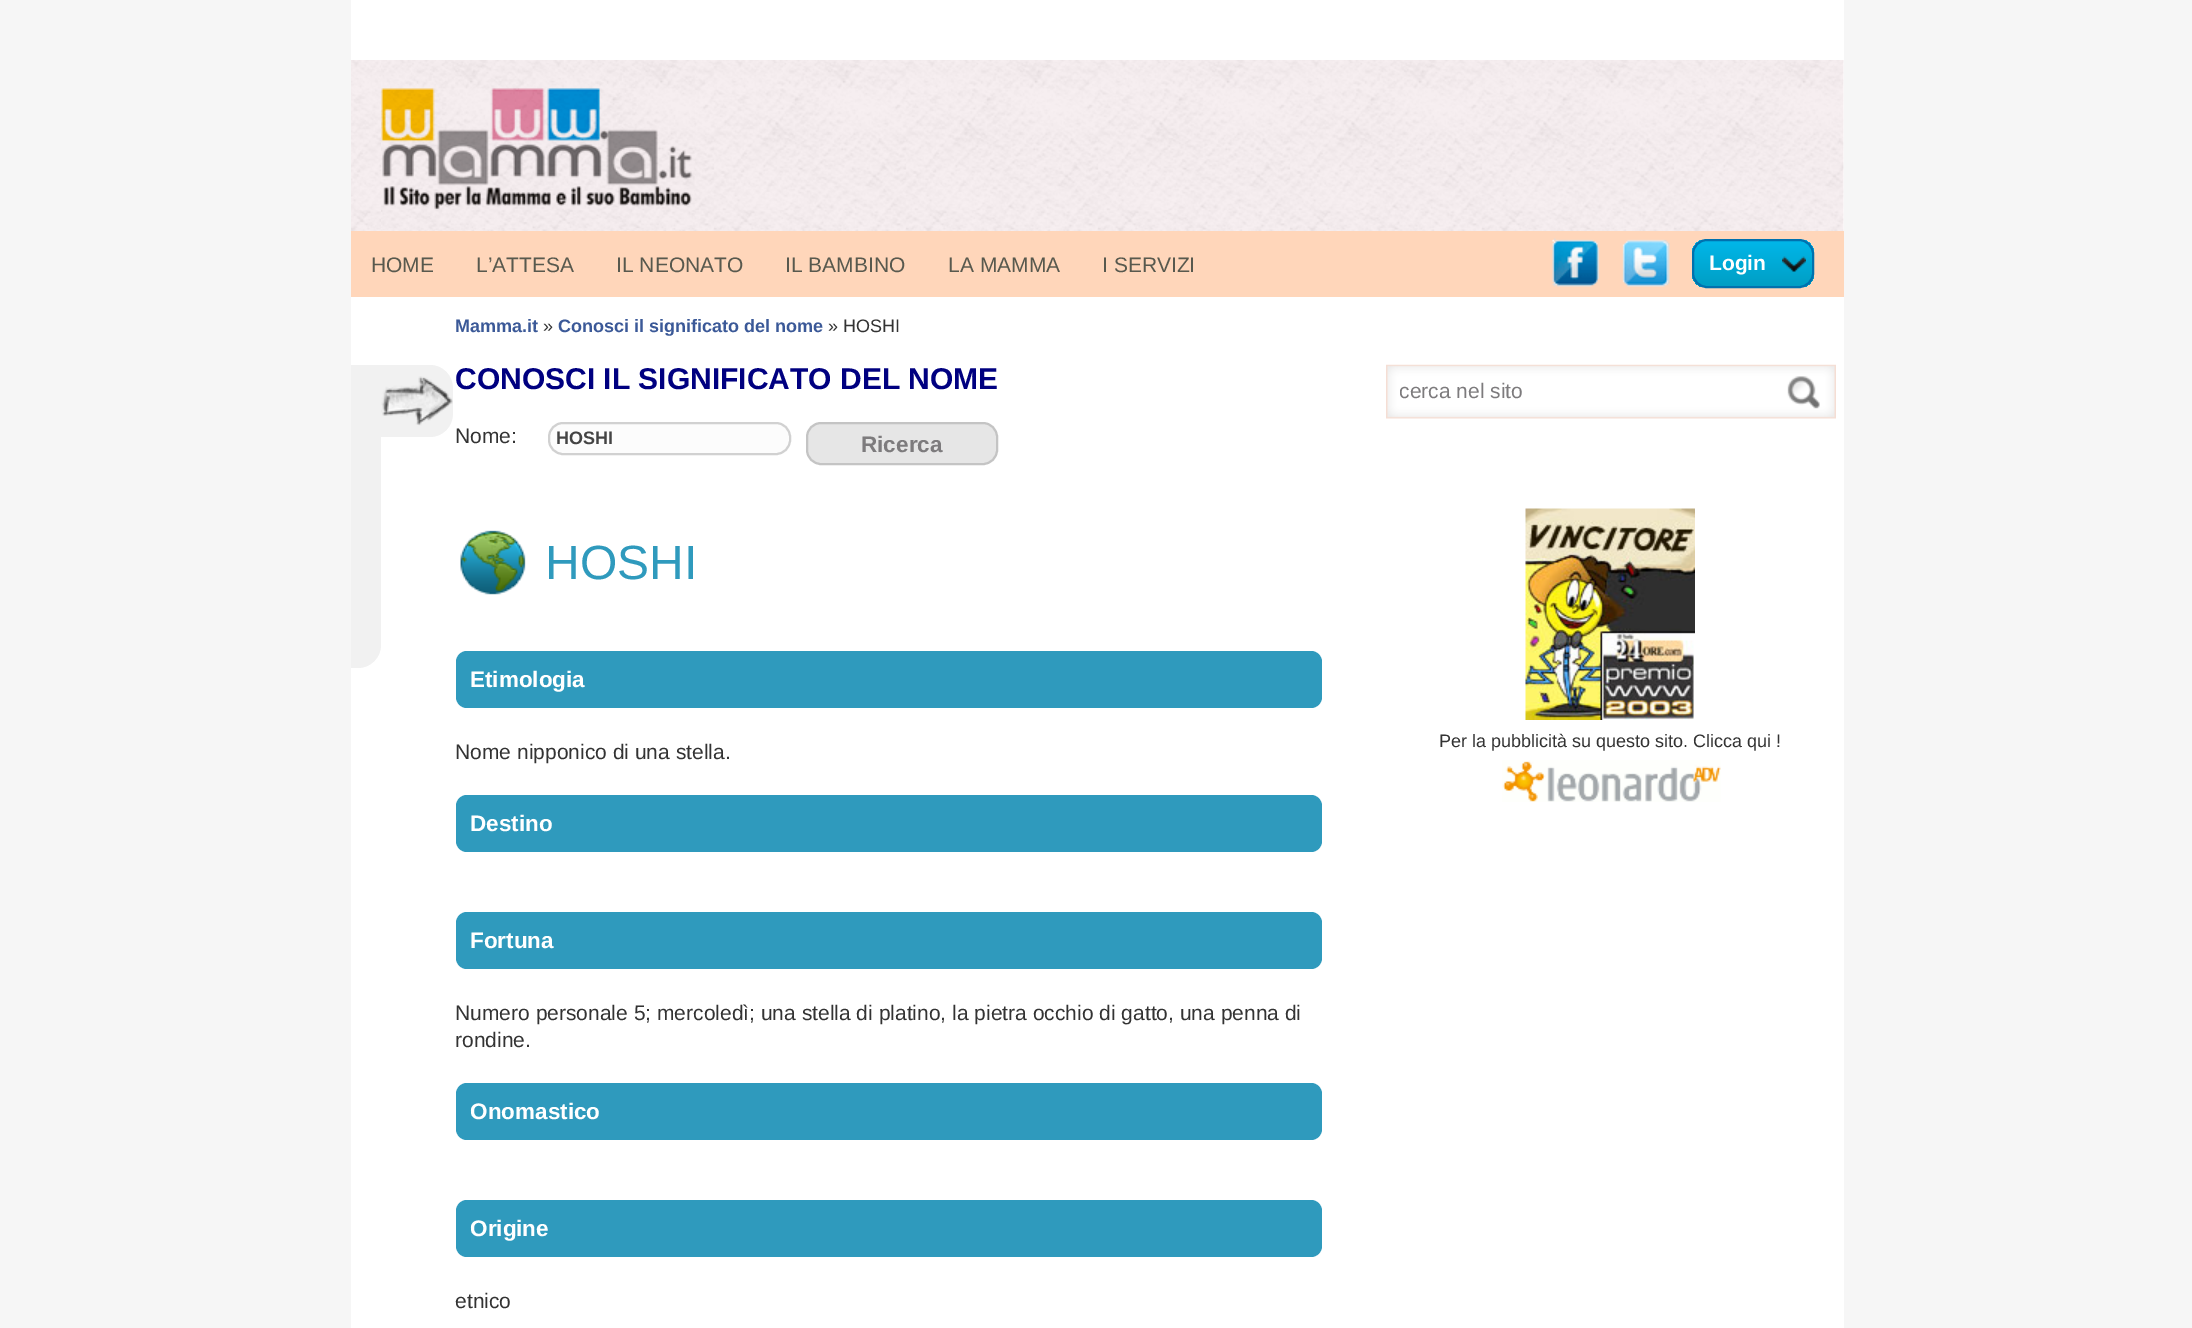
%!PS-Adobe-3.0
%%BoundingBox: 0 0 2192 1328
%%LanguageLevel: 3
%%Pages: 1
%%EndComments
%%BeginProlog
/setink { 3 { 255 div 3 1 roll } repeat setrgbcolor } def
/usefont { [ exch dup neg 0 0 3 -1 roll 0 0 ] selectfont } def
/drawtext { setink usefont moveto show } def
/fillbox { setink rectfill } def
/rrect { 5 dict begin { /r /h /w /y /x } { exch def } forall
  x r add y moveto x w add y 2 copy h add r arct x w add y h add x 1 index r arct
  x y h add x y r arct x y 2 copy exch w add exch r arct closepath end } def
/drawimage { 5 dict begin { /h /w /y /x /name } { exch def } forall
  gsave x y translate w h scale
  w h 8 [w 0 0 h 0 0] name (r) file false 3 colorimage grestore end } def
%%EndProlog
%%BeginSetup
<< /PageSize [2192 1328] >> setpagedevice
%%EndSetup
%%Page: 1 1
0 1328 translate 1 -1 scale
4 setmiterlimit
0 0 2192 1328 246 246 246 fillbox
351 0 1493 1328 255 255 255 fillbox
(assets/img1.rgb) 351 60 1493 171 drawimage
(assets/img2.rgb) 381 60 314 170 drawimage
351 231 1493 66 255 214 186 fillbox
(HOME) 371 272 /LiberationSans-Regular 21 88 89 78 drawtext
(L’ATTESA) 476 272 /LiberationSans-Regular 21 88 89 78 drawtext
(IL NEONATO) 616 272 /LiberationSans-Regular 21 88 89 78 drawtext
(IL BAMBINO) 785 272 /LiberationSans-Regular 21 88 89 78 drawtext
(LA MAMMA) 948 272 /LiberationSans-Regular 21 88 89 78 drawtext
(I SERVIZI) 1102 272 /LiberationSans-Regular 21 88 89 78 drawtext
(assets/img3.rgb) 1552 238 47 49 drawimage
(assets/img4.rgb) 1622 239 48 48 drawimage
gsave
1692 239 122 49 15 rrect clip newpath
gsave 1692 240 moveto 1814 240 lineto 1814 287 lineto 1692 287 lineto closepath clip newpath
<< /ShadingType 2 /ColorSpace /DeviceRGB /Coords [1753 240 1753 287] /Extend [true true] /Function << /FunctionType 2 /Domain [0 1] /C0 [0 0.718 0.918] /C1 [0 0.62 0.765] /N 1 >> >> shfill grestore
grestore
0 113 174 setink
2 setlinewidth
1693 240 120 47 14 rrect stroke
(Login) 1709 270 /LiberationSans-Bold 21 255 255 255 drawtext
(assets/img5.rgb) 1782 256 24 16 drawimage
(Mamma.it) 455 332 /LiberationSans-Bold 18 59 89 152 drawtext
(») 543 332 /LiberationSans-Regular 18 51 51 51 drawtext
(Conosci il significato del nome) 558 332 /LiberationSans-Bold 18 59 89 152 drawtext
(» HOSHI) 828 332 /LiberationSans-Regular 18 51 51 51 drawtext
241 241 241 setink
351 365 moveto 381 365 lineto 381 645 lineto 381 657.5 370.5 668 358 668 curveto 351 668 lineto closepath fill
381 365 moveto 430 365 lineto 442.5 365 453 375.5 453 388 curveto 453 414 lineto 453 426.5 442.5 437 430 437 curveto 381 437 lineto closepath fill
(assets/img6.rgb) 381 376 72 50 drawimage
(CONOSCI IL SIGNIFICATO DEL NOME) 455 389 /LiberationSans-Bold 30 0 0 128 drawtext
(Nome:) 455 443 /LiberationSans-Regular 21 51 51 51 drawtext
252 252 252 setink
549 423 241 31 14 rrect gsave fill grestore
209 209 209 setink
stroke
(HOSHI) 556 444 /LiberationSans-Bold 18 68 68 68 drawtext
230 230 230 setink
807 423 190 41 14 rrect gsave fill grestore
196 196 196 setink
stroke
(Ricerca) 861 452 /LiberationSans-Bold 22.5 125 123 125 drawtext
(assets/img7.rgb) 460 530 66 65 drawimage
(HOSHI) 545 579 /LiberationSans-Regular 48 47 154 189 drawtext
456 651 866 57 11 rrect fill
(Etimologia) 470 687 /LiberationSans-Bold 22.5 255 255 255 drawtext
(Nome nipponico di una stella.) 455 759 /LiberationSans-Regular 21 51 51 51 drawtext
47 154 189 setink
456 795 866 57 11 rrect fill
(Destino) 470 831 /LiberationSans-Bold 22.5 255 255 255 drawtext
47 154 189 setink
456 912 866 57 11 rrect fill
(Fortuna) 470 948 /LiberationSans-Bold 22.5 255 255 255 drawtext
(Numero personale 5; mercoledì; una stella di platino, la pietra occhio di gatto, una penna di) 455 1020 /LiberationSans-Regular 21 51 51 51 drawtext
(rondine.) 455 1047 /LiberationSans-Regular 21 51 51 51 drawtext
47 154 189 setink
456 1083 866 57 11 rrect fill
(Onomastico) 470 1119 /LiberationSans-Bold 22.5 255 255 255 drawtext
47 154 189 setink
456 1200 866 57 11 rrect fill
(Origine) 470 1236 /LiberationSans-Bold 22.5 255 255 255 drawtext
(etnico) 455 1308 /LiberationSans-Regular 21 51 51 51 drawtext
(assets/img8.rgb) 1386 364 450 55 drawimage
gsave
1400 378 360 24 rectclip
(cerca nel sito) 1399 398 /LiberationSans-Regular 21 125 123 125 drawtext
grestore
(assets/img9.rgb) 1525 508 170 212 drawimage
(Per la pubblicità su questo sito. Clicca qui !) 1439 747 /LiberationSans-Regular 18 51 51 51 drawtext
(assets/img10.rgb) 1502 760 219 42 drawimage
showpage
%%EOF
